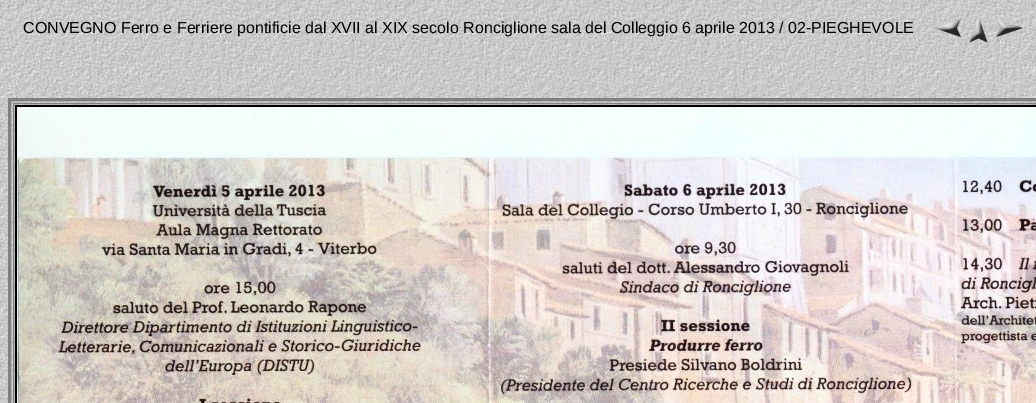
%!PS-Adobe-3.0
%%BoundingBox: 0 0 1036 403
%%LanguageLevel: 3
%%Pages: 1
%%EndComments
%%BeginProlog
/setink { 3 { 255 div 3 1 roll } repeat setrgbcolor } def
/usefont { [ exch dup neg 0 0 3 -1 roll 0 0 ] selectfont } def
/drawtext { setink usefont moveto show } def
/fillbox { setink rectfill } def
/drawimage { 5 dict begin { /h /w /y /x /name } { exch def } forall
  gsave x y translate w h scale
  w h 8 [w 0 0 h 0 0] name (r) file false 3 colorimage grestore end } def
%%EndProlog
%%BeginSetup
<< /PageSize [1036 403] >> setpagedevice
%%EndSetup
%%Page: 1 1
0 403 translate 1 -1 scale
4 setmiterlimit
0 0 1036 403 255 255 255 fillbox
(assets/img1.rgb) 0 0 1036 403 drawimage
(CONVEGNO Ferro e Ferriere pontificie dal XVII al XIX secolo Ronciglione sala del Colleggio 6 aprile 2013 / 02-PIEGHEVOLE) 23 33 /LiberationSans-Regular 16 0 0 0 drawtext
(assets/img2.rgb) 934 19 27 19 drawimage
(assets/img3.rgb) 969 16 19 27 drawimage
(assets/img4.rgb) 996 19 27 19 drawimage
128 128 128 setink
3 setlinewidth
9.5 99.5 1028 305 rectstroke
1 setlinewidth
13.5 103.5 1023 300 rectstroke
0 0 0 setink
2 setlinewidth
16 106 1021 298 rectstroke
(assets/img5.rgb) 17 107 1019 296 drawimage
showpage
%%EOF
